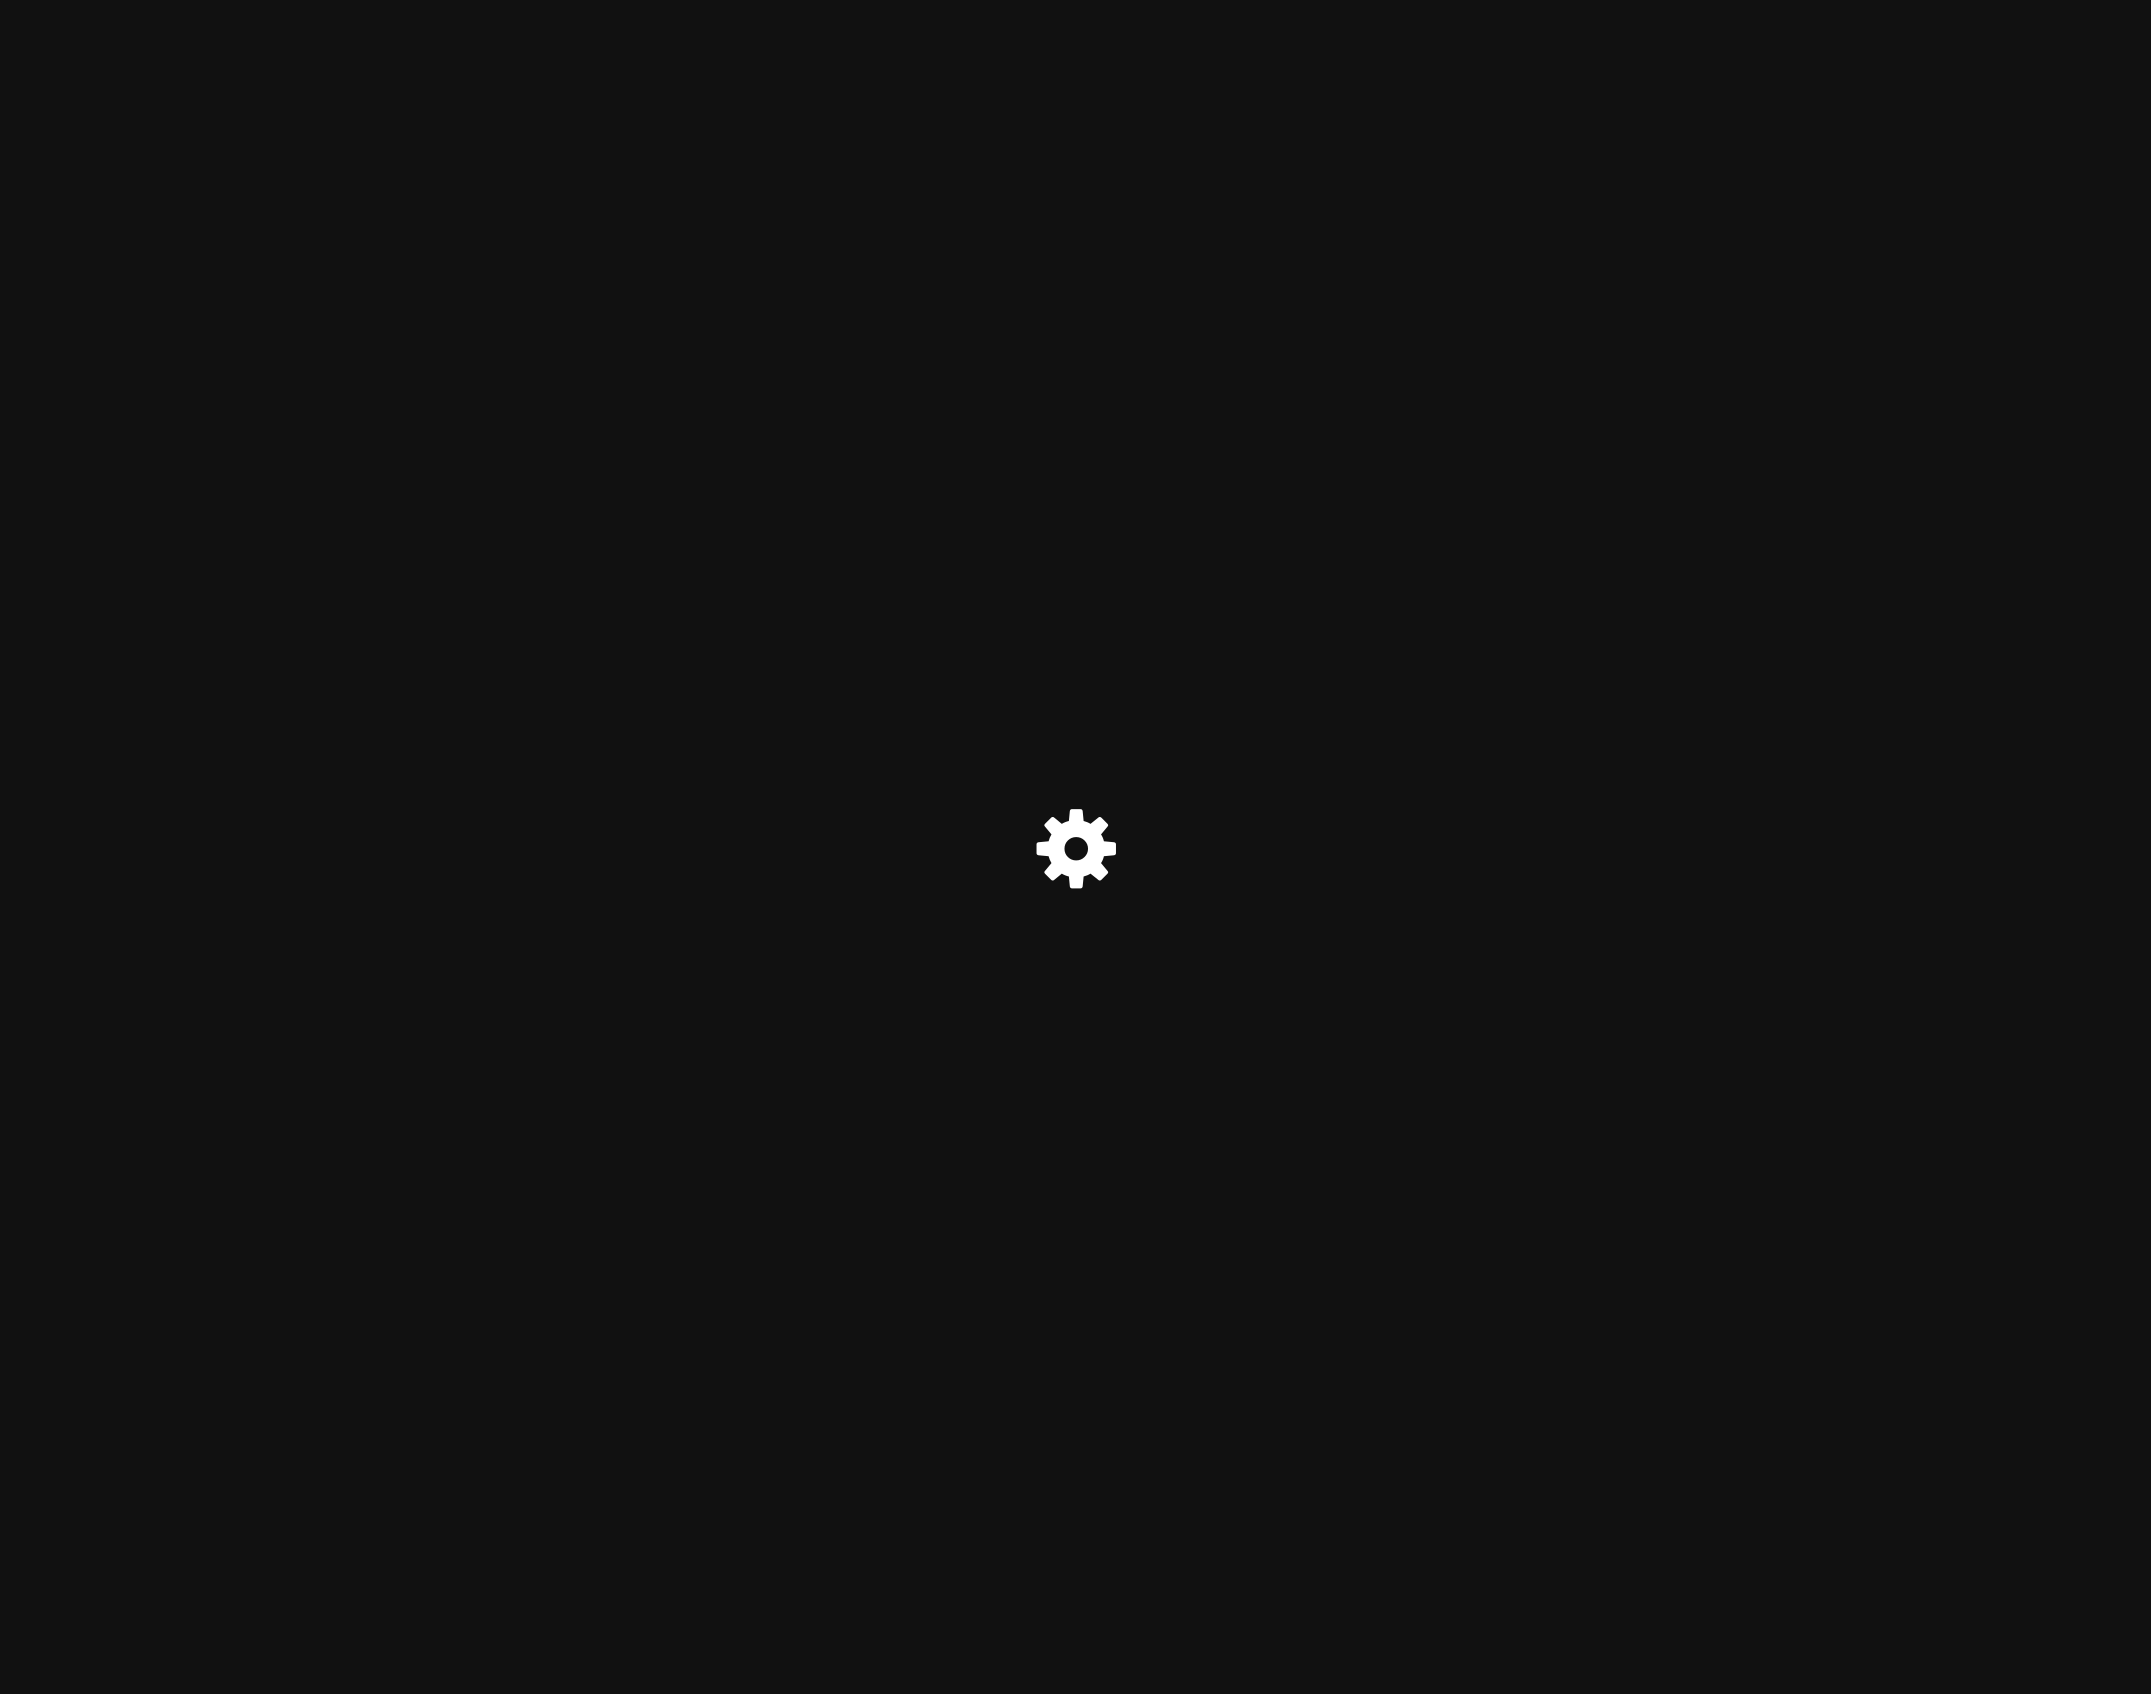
%!PS-Adobe-3.0
%%BoundingBox: 0 0 2151 1694
%%LanguageLevel: 3
%%Pages: 1
%%EndComments
%%BeginProlog
/setink { 3 { 255 div 3 1 roll } repeat setrgbcolor } def
/fillbox { setink rectfill } def
/drawimage { 5 dict begin { /h /w /y /x /name } { exch def } forall
  gsave x y translate w h scale
  w h 8 [w 0 0 h 0 0] name (r) file false 3 colorimage grestore end } def
%%EndProlog
%%BeginSetup
<< /PageSize [2151 1694] >> setpagedevice
%%EndSetup
%%Page: 1 1
0 1694 translate 1 -1 scale
4 setmiterlimit
0 0 2151 1694 17 17 17 fillbox
(assets/img1.rgb) 266 0 1655 1624 drawimage
(assets/img2.rgb) 1036 809 80 80 drawimage
showpage
%%EOF
